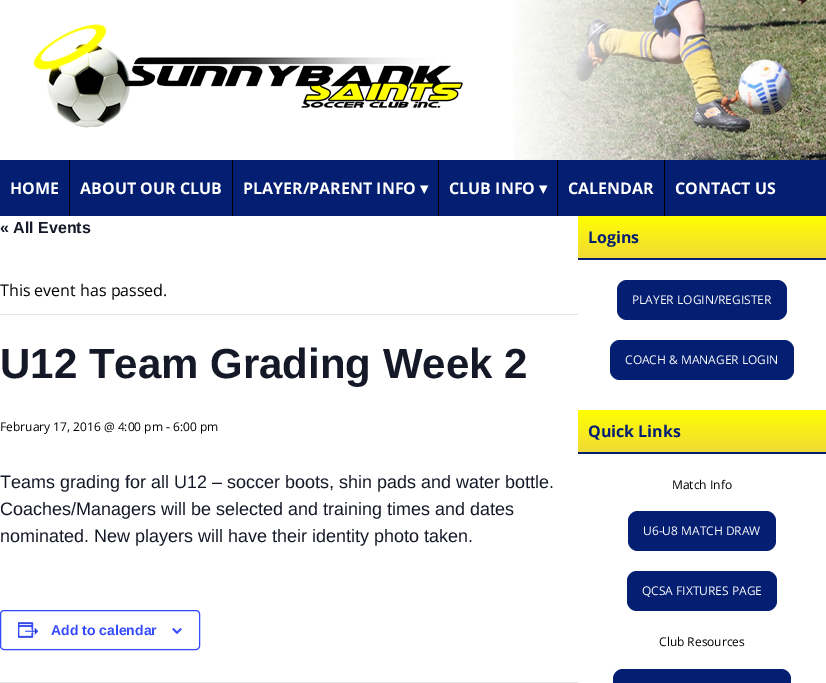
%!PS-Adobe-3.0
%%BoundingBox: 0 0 826 683
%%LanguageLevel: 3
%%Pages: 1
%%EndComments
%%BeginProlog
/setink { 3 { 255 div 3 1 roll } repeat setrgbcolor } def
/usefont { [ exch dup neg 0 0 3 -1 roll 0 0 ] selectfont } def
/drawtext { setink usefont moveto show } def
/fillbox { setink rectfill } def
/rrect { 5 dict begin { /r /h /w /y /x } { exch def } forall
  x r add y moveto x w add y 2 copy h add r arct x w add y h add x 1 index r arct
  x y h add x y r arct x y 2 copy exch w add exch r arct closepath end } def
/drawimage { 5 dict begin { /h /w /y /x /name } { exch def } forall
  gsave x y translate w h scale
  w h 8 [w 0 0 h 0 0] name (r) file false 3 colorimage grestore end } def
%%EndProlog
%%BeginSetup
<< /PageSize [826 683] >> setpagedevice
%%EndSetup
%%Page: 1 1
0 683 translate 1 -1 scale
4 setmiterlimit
0 0 826 683 255 255 255 fillbox
(assets/img1.rgb) 513 0 313 160 drawimage
(assets/img2.rgb) 33 24 430 104 drawimage
0 160 826 56 4 30 114 fillbox
69 160 1 56 0 0 0 fillbox
(HOME) 10 194 /OpenSans-Bold 16 255 255 255 drawtext
232 160 1 56 0 0 0 fillbox
(ABOUT OUR CLUB) 80 194 /OpenSans-Bold 16 255 255 255 drawtext
438 160 1 56 0 0 0 fillbox
(PLAYER/PARENT INFO) 243 194 /OpenSans-Bold 16 255 255 255 drawtext
(▾) 420 194 /DejaVuSans-Bold 16 255 255 255 drawtext
557 160 1 56 0 0 0 fillbox
(CLUB INFO) 449 194 /OpenSans-Bold 16 255 255 255 drawtext
(▾) 539 194 /DejaVuSans-Bold 16 255 255 255 drawtext
664 160 1 56 0 0 0 fillbox
(CALENDAR) 568 194 /OpenSans-Bold 16 255 255 255 drawtext
(CONTACT US) 675 194 /OpenSans-Bold 16 255 255 255 drawtext
(« All Events) 0 233 /LiberationSans-Bold 16 20 24 39 drawtext
0 314 578 1 228 228 228 fillbox
(This event has passed.) 0 296 /OpenSans-Regular 16 0 0 0 drawtext
(U12 Team Grading Week 2) 0 378 /LiberationSans-Bold 42 20 24 39 drawtext
(February 17, 2016 @ 4:00 pm - 6:00 pm) 0 431 /OpenSans-Regular 12 0 0 0 drawtext
(Teams grading for all U12 – soccer boots, shin pads and water bottle.) 0 488 /LiberationSans-Regular 18 20 24 39 drawtext
(Coaches/Managers will be selected and training times and dates) 0 515 /LiberationSans-Regular 18 20 24 39 drawtext
(nominated. New players will have their identity photo taken.) 0 542 /LiberationSans-Regular 18 20 24 39 drawtext
51 74 255 setink
0.5 610.5 199 39 3.5 rrect stroke
(assets/img3.rgb) 18 622 21 16 drawimage
(Add to calendar) 51 635 /LiberationSans-Bold 14 51 74 255 drawtext
(assets/img4.rgb) 172 628 10 6 drawimage
0 682 578 1 228 228 228 fillbox
gsave 578 216 moveto 826 216 lineto 826 258 lineto 578 258 lineto closepath clip newpath
<< /ShadingType 2 /ColorSpace /DeviceRGB /Coords [702 216 702 258] /Extend [true true] /Function << /FunctionType 2 /Domain [0 1] /C0 [1 1 0] /C1 [0.945 0.855 0.212] /N 1 >> >> shfill grestore
578 258 248 2 4 30 114 fillbox
(Logins) 588 243 /OpenSans-Bold 16 4 30 114 drawtext
617 280 170 40 10 rrect fill
(PLAYER LOGIN/REGISTER) 632 304 /OpenSans-Regular 12 255 255 255 drawtext
4 30 114 setink
610 340 184 40 10 rrect fill
(COACH & MANAGER LOGIN) 625 364 /OpenSans-Regular 12 255 255 255 drawtext
gsave 578 410 moveto 826 410 lineto 826 452 lineto 578 452 lineto closepath clip newpath
<< /ShadingType 2 /ColorSpace /DeviceRGB /Coords [702 410 702 452] /Extend [true true] /Function << /FunctionType 2 /Domain [0 1] /C0 [1 1 0] /C1 [0.945 0.855 0.212] /N 1 >> >> shfill grestore
578 452 248 2 4 30 114 fillbox
(Quick Links) 588 437 /OpenSans-Bold 16 4 30 114 drawtext
(Match Info) 672 489 /OpenSans-Regular 12 0 0 0 drawtext
4 30 114 setink
628 511 148 40 10 rrect fill
(U6-U8 MATCH DRAW) 643 535 /OpenSans-Regular 12 255 255 255 drawtext
4 30 114 setink
627 571 150 40 10 rrect fill
(QCSA FIXTURES PAGE) 642 595 /OpenSans-Regular 12 255 255 255 drawtext
(Club Resources) 659 646 /OpenSans-Regular 12 0 0 0 drawtext
4 30 114 setink
613 669 178 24 10 rrect fill
showpage
%%EOF
